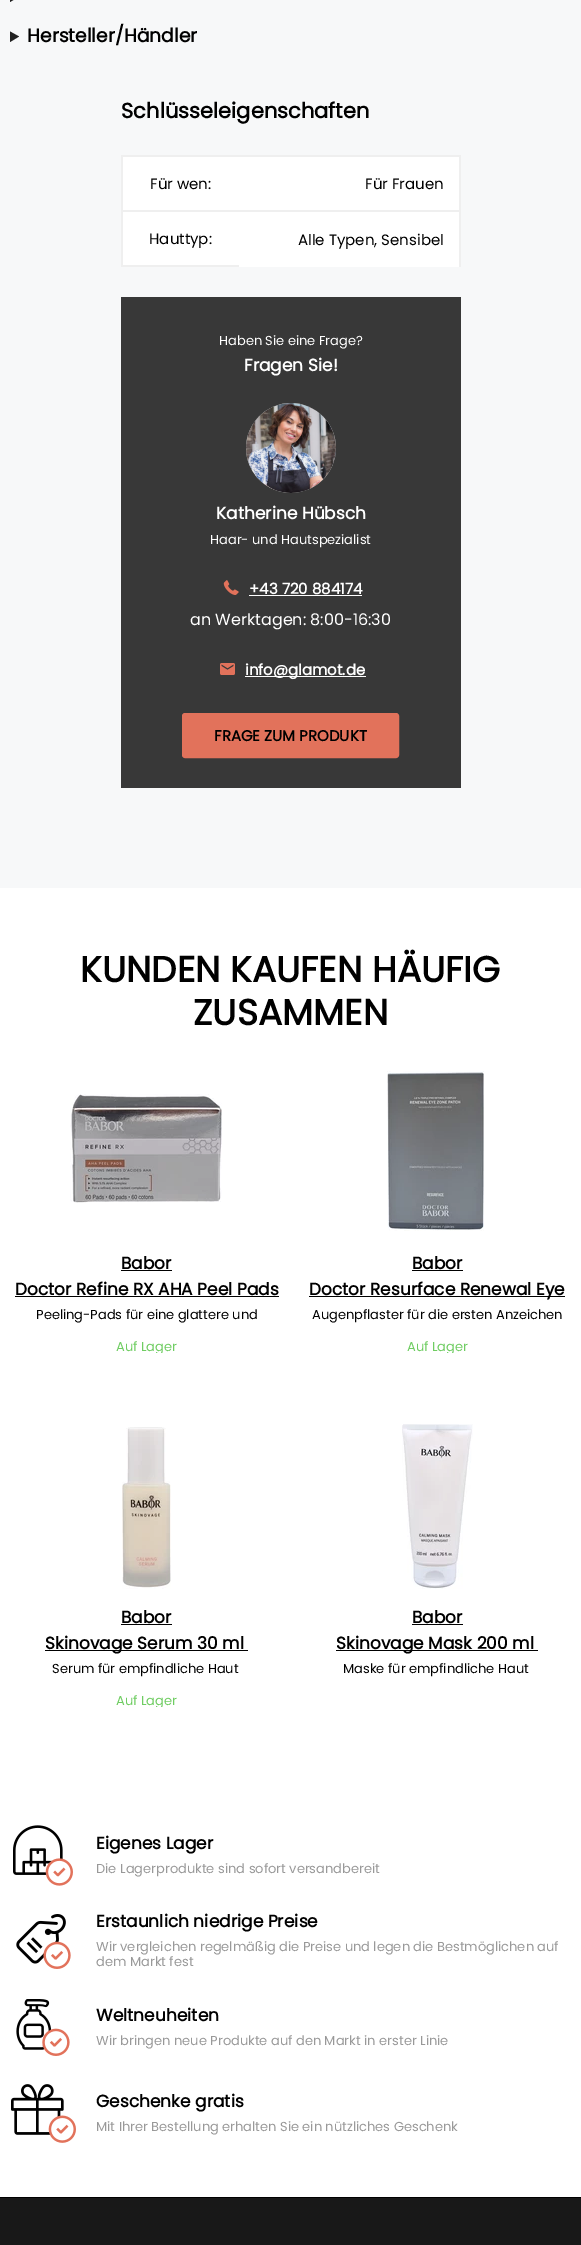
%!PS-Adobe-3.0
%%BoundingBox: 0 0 581 2245
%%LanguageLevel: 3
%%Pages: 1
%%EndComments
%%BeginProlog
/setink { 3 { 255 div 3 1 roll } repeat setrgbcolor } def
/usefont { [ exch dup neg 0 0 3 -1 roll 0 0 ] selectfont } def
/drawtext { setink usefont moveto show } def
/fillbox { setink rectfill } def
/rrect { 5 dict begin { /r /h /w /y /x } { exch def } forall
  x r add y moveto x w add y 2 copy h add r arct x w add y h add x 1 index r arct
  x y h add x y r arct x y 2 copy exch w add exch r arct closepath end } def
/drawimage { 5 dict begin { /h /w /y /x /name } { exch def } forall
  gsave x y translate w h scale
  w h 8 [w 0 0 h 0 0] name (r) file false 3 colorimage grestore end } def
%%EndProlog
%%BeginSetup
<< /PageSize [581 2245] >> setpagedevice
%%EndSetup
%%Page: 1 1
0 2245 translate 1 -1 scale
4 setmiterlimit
0 0 581 2245 255 255 255 fillbox
0 0 581 888 247 248 249 fillbox
33 33 33 setink
10 -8.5 moveto 19 -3.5 lineto 10 2 lineto closepath 10 31.5 moveto 19 36.5 lineto 10 42 lineto closepath fill
(Hersteller/Händler) 27 42 /Poppins-Bold 18.75 0 0 0 drawtext
(Schlüsseleigenschaften) 121 118 /Poppins-Bold 21 0 0 0 drawtext
123 157 336 110 255 255 255 fillbox
121 155 340 2 239 239 239 fillbox
459 155 2 112 239 239 239 fillbox
121 155 2 112 239 239 239 fillbox
123 210 336 2 239 239 239 fillbox
(Für wen:) 150 189 /Poppins-Regular 15 0 0 0 drawtext
(Für Frauen) 365 189 /Poppins-Regular 15 0 0 0 drawtext
123 265 116 2 239 239 239 fillbox
(Hauttyp:) 149 244 /Poppins-Regular 15 0 0 0 drawtext
(Alle Typen, Sensibel) 298 245 /Poppins-Regular 15 0 0 0 drawtext
121 297 340 491 56 56 56 fillbox
(Haben Sie eine Frage?) 219 345 /Poppins-Regular 13 255 255 255 drawtext
(Fragen Sie!) 244 371 /Poppins-Bold 17 255 255 255 drawtext
(assets/img1.rgb) 246 403 90 90 drawimage
(Katherine Hübsch) 216 519 /Poppins-Bold 17 255 255 255 drawtext
(Haar- und Hautspezialist) 210 544 /Poppins-Regular 13 255 255 255 drawtext
(assets/img2.rgb) 223 580 16 15 drawimage
(+43 720 884174) 249 594 /Poppins-Bold 15 255 255 255 drawtext
249 595 113 1 255 255 255 fillbox
(an Werktagen: 8:00-16:30) 190 625 /Poppins-Regular 16 255 255 255 drawtext
(assets/img3.rgb) 220 663 15 12 drawimage
245 676 121 1 255 255 255 fillbox
(info@glamot.de) 245 675 /Poppins-Bold 15 255 255 255 drawtext
226 114 91 setink
183 714 215 43 2 rrect gsave fill grestore
2 setlinewidth
stroke
(FRAGE ZUM PRODUKT) 214 741 /Poppins-Bold 15 0 0 0 drawtext
(KUNDEN KAUFEN HÄUFIG) 80 982 /Poppins-Bold 36 0 0 0 drawtext
(ZUSAMMEN) 193 1025 /Poppins-Bold 36 0 0 0 drawtext
(assets/img4.rgb) 70 1094 152 109 drawimage
(Babor) 121 1269 /Poppins-Bold 17 0 0 0 drawtext
121 1270 51 1 0 0 0 fillbox
(Doctor Refine RX AHA Peel Pads) 15 1295 /Poppins-Bold 17 0 0 0 drawtext
15 1296 264 1 0 0 0 fillbox
(Peeling-Pads für eine glattere und) 36 1319 /Poppins-Regular 13 0 0 0 drawtext
gsave
1 1333 291 20 rectclip
(Auf Lager) 116 1351 /Poppins-Regular 13 111 205 98 drawtext
grestore
(assets/img5.rgb) 387 1071 97 160 drawimage
(Babor) 412 1269 /Poppins-Bold 17 0 0 0 drawtext
412 1270 51 1 0 0 0 fillbox
309 1296 256 1 0 0 0 fillbox
(Doctor Resurface Renewal Eye) 309 1295 /Poppins-Bold 17 0 0 0 drawtext
(Augenpflaster für die ersten Anzeichen) 312 1319 /Poppins-Regular 13 0 0 0 drawtext
gsave
292 1333 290 20 rectclip
(Auf Lager) 407 1351 /Poppins-Regular 13 111 205 98 drawtext
grestore
(assets/img6.rgb) 122 1427 49 162 drawimage
(Babor) 121 1623 /Poppins-Bold 17 0 0 0 drawtext
121 1624 51 1 0 0 0 fillbox
45 1650 203 1 0 0 0 fillbox
(Skinovage Serum 30 ml) 45 1649 /Poppins-Bold 17 0 0 0 drawtext
(Serum für empfindliche Haut) 52 1673 /Poppins-Regular 13 0 0 0 drawtext
gsave
1 1687 291 20 rectclip
(Auf Lager) 116 1705 /Poppins-Regular 13 111 205 98 drawtext
grestore
(assets/img7.rgb) 402 1424 71 165 drawimage
(Babor) 412 1623 /Poppins-Bold 17 0 0 0 drawtext
412 1624 51 1 0 0 0 fillbox
336 1650 202 1 0 0 0 fillbox
(Skinovage Mask 200 ml) 336 1649 /Poppins-Bold 17 0 0 0 drawtext
(Maske für empfindliche Haut) 343 1673 /Poppins-Regular 13 0 0 0 drawtext
(assets/img8.rgb) 13 1825 60 61 drawimage
(Eigenes Lager) 96 1849 /Poppins-Bold 17 0 0 0 drawtext
(Die Lagerprodukte sind sofort versandbereit) 96 1873 /Poppins-Regular 13 153 153 153 drawtext
(assets/img9.rgb) 16 1914 55 55 drawimage
(Erstaunlich niedrige Preise) 96 1927 /Poppins-Bold 17 0 0 0 drawtext
(Wir vergleichen regelmäßig die Preise und legen die Bestmöglichen auf) 96 1951 /Poppins-Regular 13 153 153 153 drawtext
(dem Markt fest) 96 1966 /Poppins-Regular 13 153 153 153 drawtext
(assets/img10.rgb) 16 1999 54 57 drawimage
(Weltneuheiten) 96 2021 /Poppins-Bold 17 0 0 0 drawtext
(Wir bringen neue Produkte auf den Markt in erster Linie) 96 2045 /Poppins-Regular 13 153 153 153 drawtext
(assets/img11.rgb) 11 2084 65 59 drawimage
(Geschenke gratis) 96 2107 /Poppins-Bold 17 0 0 0 drawtext
(Mit Ihrer Bestellung erhalten Sie ein nützliches Geschenk) 96 2131 /Poppins-Regular 13 153 153 153 drawtext
0 2197 581 1 0 0 0 fillbox
0 2198 581 47 24 24 24 fillbox
showpage
%%EOF
